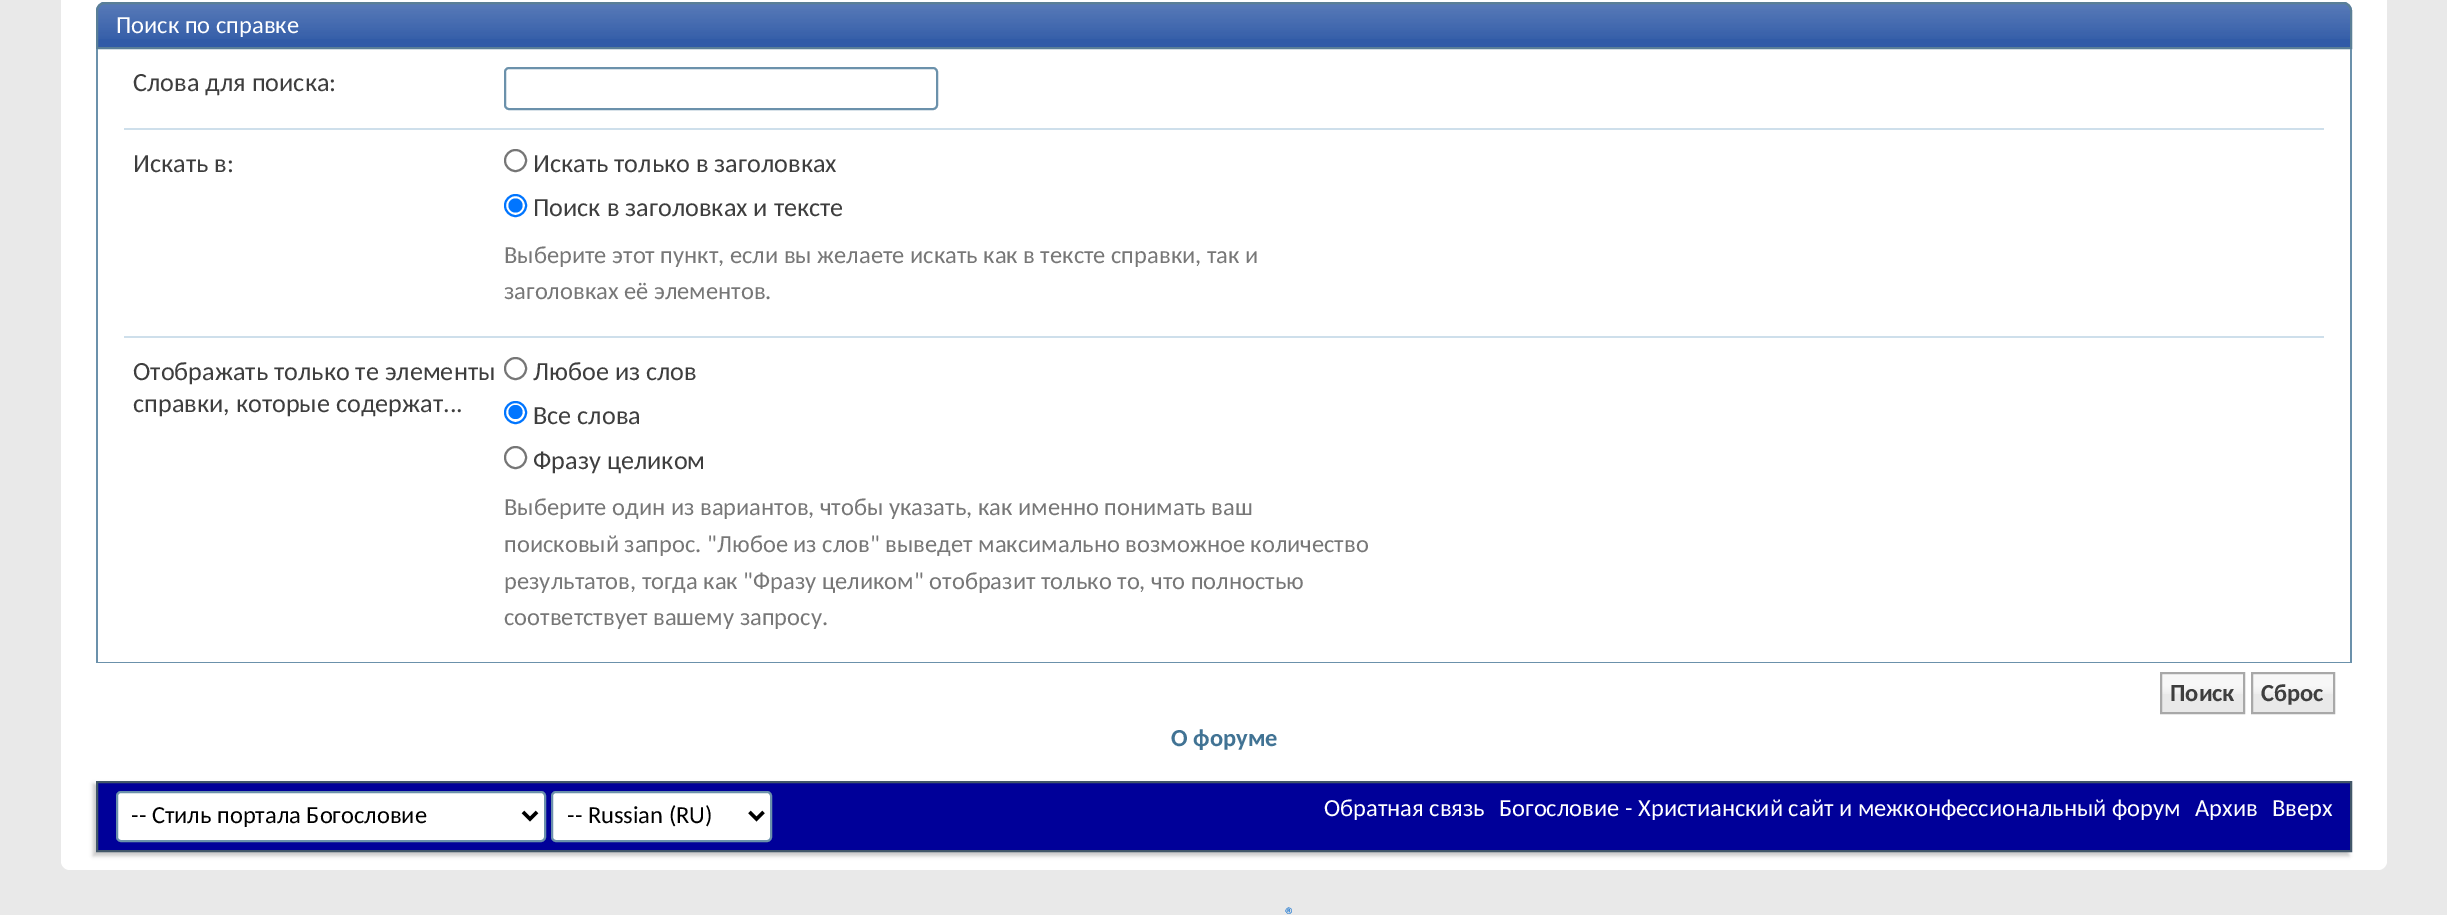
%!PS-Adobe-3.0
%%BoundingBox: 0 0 2447 915
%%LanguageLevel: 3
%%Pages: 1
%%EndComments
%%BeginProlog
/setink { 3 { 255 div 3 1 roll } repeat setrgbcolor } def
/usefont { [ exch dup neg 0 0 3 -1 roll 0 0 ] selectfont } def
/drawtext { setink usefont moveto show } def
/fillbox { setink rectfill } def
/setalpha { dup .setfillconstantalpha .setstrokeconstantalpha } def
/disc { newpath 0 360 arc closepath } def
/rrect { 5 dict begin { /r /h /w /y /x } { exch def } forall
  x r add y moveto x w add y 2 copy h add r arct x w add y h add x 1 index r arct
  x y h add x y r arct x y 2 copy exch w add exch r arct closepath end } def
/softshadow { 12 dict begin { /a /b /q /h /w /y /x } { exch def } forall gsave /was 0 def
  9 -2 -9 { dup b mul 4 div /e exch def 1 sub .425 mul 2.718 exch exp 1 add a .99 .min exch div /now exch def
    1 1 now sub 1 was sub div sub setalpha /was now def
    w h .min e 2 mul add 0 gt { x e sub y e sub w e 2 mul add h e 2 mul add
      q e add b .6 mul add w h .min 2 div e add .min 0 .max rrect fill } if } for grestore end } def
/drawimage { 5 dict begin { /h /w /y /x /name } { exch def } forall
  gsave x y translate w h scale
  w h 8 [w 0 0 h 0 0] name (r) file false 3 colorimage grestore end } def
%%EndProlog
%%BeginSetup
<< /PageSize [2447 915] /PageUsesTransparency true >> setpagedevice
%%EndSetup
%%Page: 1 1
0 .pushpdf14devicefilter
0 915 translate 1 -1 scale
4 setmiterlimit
0 0 2447 915 233 233 233 fillbox
255 255 255 setink
61 -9 2326 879 9 rrect fill
49 91 167 setink
105 2 moveto 2343 2 lineto 2348 2 2352 6 2352 11 curveto 2352 49 lineto 96 49 lineto 96 11 lineto 96 6 100 2 105 2 curveto closepath fill
(assets/img1.rgb) 96 3 2256 36 drawimage
90 127 151 setink
2 setlinewidth
105 3 moveto 2343 3 lineto 2347.5 3 2351 6.5 2351 11 curveto 2351 48 lineto 97 48 lineto 97 11 lineto 97 6.5 100.5 3 105 3 curveto closepath stroke
(Поиск по справке) 116 33 /Carlito-Regular 24.5 255 255 255 drawtext
2350 49 2 614 107 145 171 fillbox
96 662 2256 1 107 145 171 fillbox
96 49 2 614 107 145 171 fillbox
(Слова для поиска:) 133 91 /Carlito-Regular 26.25 62 62 62 drawtext
107 145 171 setink
505 68 432 41 4 rrect stroke
124 128 2200 2 206 223 235 fillbox
(Искать в:) 133 172 /Carlito-Regular 26.25 62 62 62 drawtext
118 118 118 setink
515.5 160.5 10.5 disc stroke
(Искать только в заголовках) 533 172 /Carlito-Regular 26.25 62 62 62 drawtext
0 117 255 setink
515.5 205.5 10.5 disc stroke
515.5 205.5 7 disc fill
(Поиск в заголовках и тексте) 533 216 /Carlito-Regular 26.25 62 62 62 drawtext
(Выберите этот пункт, если вы желаете искать как в тексте справки, так и) 504 263 /Carlito-Regular 24.5 119 119 119 drawtext
(заголовках её элементов.) 504 299 /Carlito-Regular 24.5 119 119 119 drawtext
124 336 2200 2 206 223 235 fillbox
(Отображать только те элементы) 133 380 /Carlito-Regular 26.25 62 62 62 drawtext
(справки, которые содержат...) 133 412 /Carlito-Regular 26.25 62 62 62 drawtext
118 118 118 setink
515.5 368.5 10.5 disc stroke
(Любое из слов) 533 380 /Carlito-Regular 26.25 62 62 62 drawtext
0 117 255 setink
515.5 412.5 10.5 disc stroke
515.5 412 7 disc fill
(Все слова) 533 424 /Carlito-Regular 26.25 62 62 62 drawtext
118 118 118 setink
515.5 457.5 10.5 disc stroke
(Фразу целиком) 533 469 /Carlito-Regular 26.25 62 62 62 drawtext
(Выберите один из вариантов, чтобы указать, как именно понимать ваш) 504 515 /Carlito-Regular 24.5 119 119 119 drawtext
(поисковый запрос. "Любое из слов" выведет максимально возможное количество) 504 552 /Carlito-Regular 24.5 119 119 119 drawtext
(результатов, тогда как "Фразу целиком" отобразит только то, что полностью) 504 589 /Carlito-Regular 24.5 119 119 119 drawtext
(соответствует вашему запросу.) 504 625 /Carlito-Regular 24.5 119 119 119 drawtext
2162 674 81 38 233 233 233 fillbox
(assets/img2.rgb) 2162 674 81 20 drawimage
168 168 168 setink
2161 673 83 40 rectstroke
(Поиск) 2170 701 /Carlito-Bold 24.5 62 62 62 drawtext
2253 674 80 38 233 233 233 fillbox
(assets/img3.rgb) 2253 674 80 20 drawimage
168 168 168 setink
2252 673 82 40 rectstroke
(Сброс) 2261 701 /Carlito-Bold 24.5 62 62 62 drawtext
(О форуме) 1171 746 /Carlito-Bold 24.5 65 115 148 drawtext
200 200 200 setink
93 784 2256 72 0 2 1 softshadow
0 0 153 setink
97 782 moveto 2351 782 lineto 2351 851 lineto 97 851 lineto closepath gsave fill grestore
66 87 105 setink
stroke
255 255 255 setink
117 792 428 49 4 rrect gsave fill grestore
107 145 171 setink
stroke
0 0 0 setink
3.5 setlinewidth
523 812 moveto 530 819 lineto 537 812 lineto stroke
(-- Стиль портала Богословие) 131 823 /Carlito-Regular 24.5 0 0 0 drawtext
255 255 255 setink
552 792 219 49 4 rrect gsave fill grestore
107 145 171 setink
2 setlinewidth
stroke
0 0 0 setink
3.5 setlinewidth
749.5 812 moveto 756.5 819 lineto 763.5 812 lineto stroke
(-- Russian \(RU\)) 567 823 /Carlito-Regular 24.5 0 0 0 drawtext
(Обратная связь) 1324 816 /Carlito-Regular 24.5 255 255 255 drawtext
(Богословие - Христианский сайт и межконфессиональный форум) 1499 816 /Carlito-Regular 24.5 255 255 255 drawtext
(Архив) 2195 816 /Carlito-Regular 24.5 255 255 255 drawtext
(Вверх) 2272 816 /Carlito-Regular 24.5 255 255 255 drawtext
(®) 1285 922 /Carlito-Regular 21 0 102 204 drawtext
.poppdf14devicefilter showpage
%%EOF
